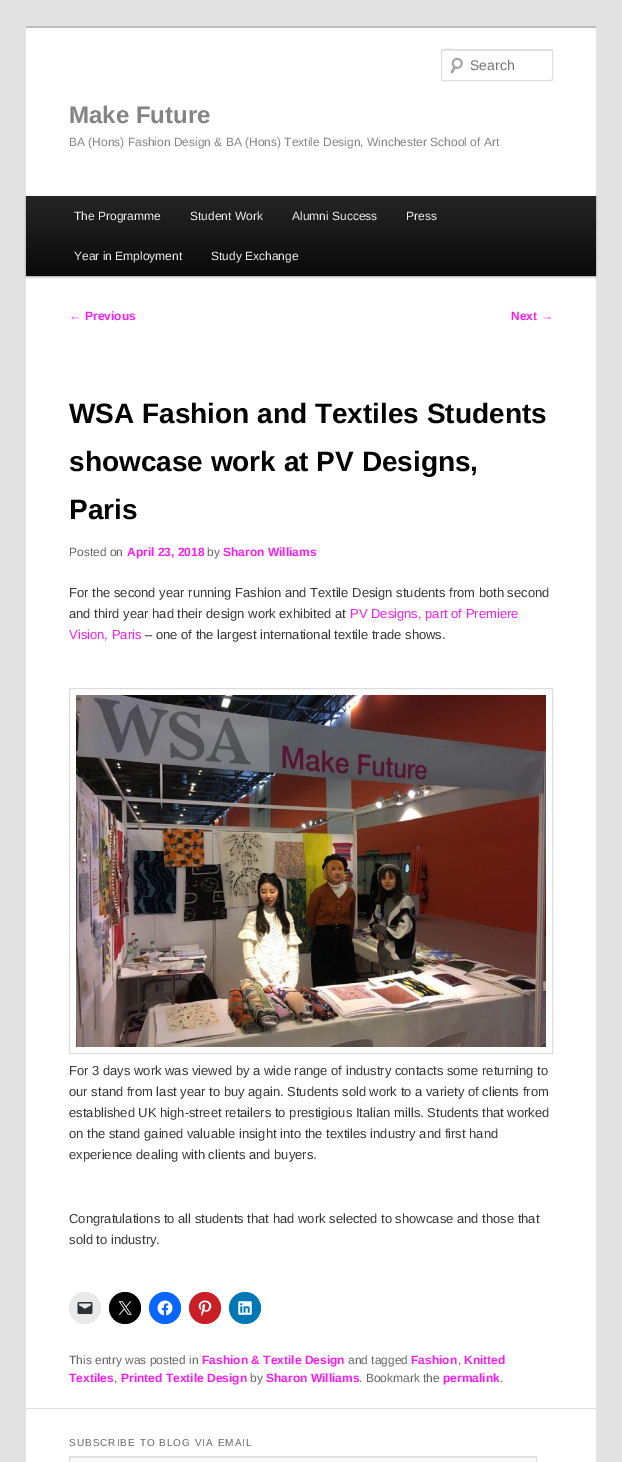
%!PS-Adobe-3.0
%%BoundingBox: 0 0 622 1462
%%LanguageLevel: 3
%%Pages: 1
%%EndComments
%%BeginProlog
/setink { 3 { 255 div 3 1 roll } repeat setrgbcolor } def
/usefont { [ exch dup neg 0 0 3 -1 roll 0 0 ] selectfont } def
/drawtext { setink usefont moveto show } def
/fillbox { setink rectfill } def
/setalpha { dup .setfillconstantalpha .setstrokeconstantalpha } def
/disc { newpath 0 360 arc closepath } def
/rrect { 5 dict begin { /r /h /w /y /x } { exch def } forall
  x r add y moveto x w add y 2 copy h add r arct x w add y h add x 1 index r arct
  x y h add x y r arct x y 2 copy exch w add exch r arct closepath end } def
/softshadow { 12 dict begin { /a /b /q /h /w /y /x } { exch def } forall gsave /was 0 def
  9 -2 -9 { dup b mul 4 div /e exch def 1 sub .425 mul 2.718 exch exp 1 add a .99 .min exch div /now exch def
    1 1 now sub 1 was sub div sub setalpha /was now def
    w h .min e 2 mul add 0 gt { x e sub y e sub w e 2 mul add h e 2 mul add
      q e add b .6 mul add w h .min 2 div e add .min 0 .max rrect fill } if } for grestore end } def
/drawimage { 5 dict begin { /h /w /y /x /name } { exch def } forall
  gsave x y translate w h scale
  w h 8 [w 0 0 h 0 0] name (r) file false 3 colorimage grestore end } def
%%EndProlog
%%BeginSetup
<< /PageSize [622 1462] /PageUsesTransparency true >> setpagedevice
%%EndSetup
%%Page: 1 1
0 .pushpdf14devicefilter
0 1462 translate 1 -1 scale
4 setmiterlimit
0 0 622 1462 226 226 226 fillbox
26 28 570 1434 255 255 255 fillbox
26 26 570 2 187 187 187 fillbox
(assets/img1.rgb) 450 57 13 17 drawimage
230 230 230 setink
443 51 moveto 552 51 lineto 552 52 lineto 551 50 lineto 461 50 lineto 457 50 442 45 442 52 curveto 442 51 442 51 443 51 curveto closepath fill
221 221 221 setink
441.5 49.5 111 31 1.5 rrect stroke
(Search) 470 70 /LiberationSans-Regular 14 117 117 117 drawtext
(Make Future) 69 123 /LiberationSans-Bold 24 132 132 132 drawtext
(BA \(Hons\) Fashion Design & BA \(Hons\) Textile Design, Winchester School of Art) 69 146 /LiberationSans-Regular 12 132 132 132 drawtext
0 0 0 setink
26 197 570 80 0 1 0.4 softshadow
gsave 26 196 moveto 596 196 lineto 596 276 lineto 26 276 lineto closepath clip newpath
<< /ShadingType 2 /ColorSpace /DeviceRGB /Coords [311 196 311 276] /Extend [true true] /Function << /FunctionType 2 /Domain [0 1] /C0 [0.145 0.145 0.145] /C1 [0.039 0.039 0.039] /N 1 >> >> shfill grestore
(The Programme) 74 220 /LiberationSans-Regular 12 238 238 238 drawtext
(Student Work) 190 220 /LiberationSans-Regular 12 238 238 238 drawtext
(Alumni Success) 292 220 /LiberationSans-Regular 12 238 238 238 drawtext
(Press) 406 220 /LiberationSans-Regular 12 238 238 238 drawtext
(Year in Employment) 74 260 /LiberationSans-Regular 12 238 238 238 drawtext
(Study Exchange) 211 260 /LiberationSans-Regular 12 238 238 238 drawtext
(←) 69 320 /LiberationSans-Regular 12 247 29 236 drawtext
(Previous) 85 320 /LiberationSans-Bold 12 247 29 236 drawtext
(Next) 511 320 /LiberationSans-Bold 12 247 29 236 drawtext
(→) 541 320 /LiberationSans-Regular 12 247 29 236 drawtext
(WSA Fashion and Textiles Students) 69 423 /LiberationSans-Bold 28 0 0 0 drawtext
(showcase work at PV Designs,) 69 471 /LiberationSans-Bold 28 0 0 0 drawtext
(Paris) 69 519 /LiberationSans-Bold 28 0 0 0 drawtext
(Posted on) 69 556 /LiberationSans-Regular 12 102 102 102 drawtext
(April 23, 2018) 127 556 /LiberationSans-Bold 12 247 29 236 drawtext
(by) 207 556 /LiberationSans-Regular 12 102 102 102 drawtext
(Sharon Williams) 223 556 /LiberationSans-Bold 12 247 29 236 drawtext
(For the second year running Fashion and Textile Design students from both second) 69 597 /LiberationSans-Regular 13 55 55 55 drawtext
(and third year had their design work exhibited at) 69 618 /LiberationSans-Regular 13 55 55 55 drawtext
(PV Designs, part of Premiere) 350 618 /LiberationSans-Regular 13 247 29 236 drawtext
(Vision, Paris) 69 639 /LiberationSans-Regular 13 247 29 236 drawtext
(– one of the largest international textile trade shows.) 145 639 /LiberationSans-Regular 13 55 55 55 drawtext
221 221 221 setink
69.5 688.5 483 365 rectstroke
(assets/img2.rgb) 76 695 470 352 drawimage
(For 3 days work was viewed by a wide range of industry contacts some returning to) 69 1075 /LiberationSans-Regular 13 55 55 55 drawtext
(our stand from last year to buy again. Students sold work to a variety of clients from) 69 1096 /LiberationSans-Regular 13 55 55 55 drawtext
(established UK high-street retailers to prestigious Italian mills. Students that worked) 69 1117 /LiberationSans-Regular 13 55 55 55 drawtext
(on the stand gained valuable insight into the textiles industry and first hand) 69 1138 /LiberationSans-Regular 13 55 55 55 drawtext
(experience dealing with clients and buyers.) 69 1159 /LiberationSans-Regular 13 55 55 55 drawtext
(Congratulations to all students that had work selected to showcase and those that) 69 1223 /LiberationSans-Regular 13 55 55 55 drawtext
(sold to industry.) 69 1244 /LiberationSans-Regular 13 55 55 55 drawtext
233 233 233 setink
85 1308 16 disc fill
(assets/img3.rgb) 77 1302 16 12 drawimage
0 0 0 setink
125 1308 16 disc fill
(assets/img4.rgb) 118 1301 14 14 drawimage
8 102 255 setink
165 1308 16 disc fill
(assets/img5.rgb) 157 1300 16 16 drawimage
202 31 39 setink
205 1308 16 disc fill
(assets/img6.rgb) 198 1300 14 16 drawimage
0 119 181 setink
245 1308 16 disc fill
(assets/img7.rgb) 238 1301 14 14 drawimage
(This entry was posted in) 69 1364 /LiberationSans-Regular 12 102 102 102 drawtext
(Fashion & Textile Design) 202 1364 /LiberationSans-Bold 12 247 29 236 drawtext
(and tagged) 348 1364 /LiberationSans-Regular 12 102 102 102 drawtext
(Fashion) 411 1364 /LiberationSans-Bold 12 247 29 236 drawtext
(,) 458 1364 /LiberationSans-Regular 12 102 102 102 drawtext
(Knitted) 464 1364 /LiberationSans-Bold 12 247 29 236 drawtext
(Textiles) 69 1382 /LiberationSans-Bold 12 247 29 236 drawtext
(,) 114 1382 /LiberationSans-Regular 12 102 102 102 drawtext
(Printed Textile Design) 121 1382 /LiberationSans-Bold 12 247 29 236 drawtext
(by) 250 1382 /LiberationSans-Regular 12 102 102 102 drawtext
(Sharon Williams) 266 1382 /LiberationSans-Bold 12 247 29 236 drawtext
(. Bookmark the) 359 1382 /LiberationSans-Regular 12 102 102 102 drawtext
(permalink) 443 1382 /LiberationSans-Bold 12 247 29 236 drawtext
(.) 500 1382 /LiberationSans-Regular 12 102 102 102 drawtext
26 1408 570 1 221 221 221 fillbox
/LiberationSans-Regular 10 usefont
102 102 102 setink
69 1446 moveto 1 0 (SUBSCRIBE TO BLOG VIA EMAIL) ashow
69 1458 468 4 250 250 250 fillbox
70 1457 466 1 225 225 225 fillbox
221 221 221 setink
69.5 1456.5 467 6 rectstroke
.poppdf14devicefilter showpage
%%EOF
